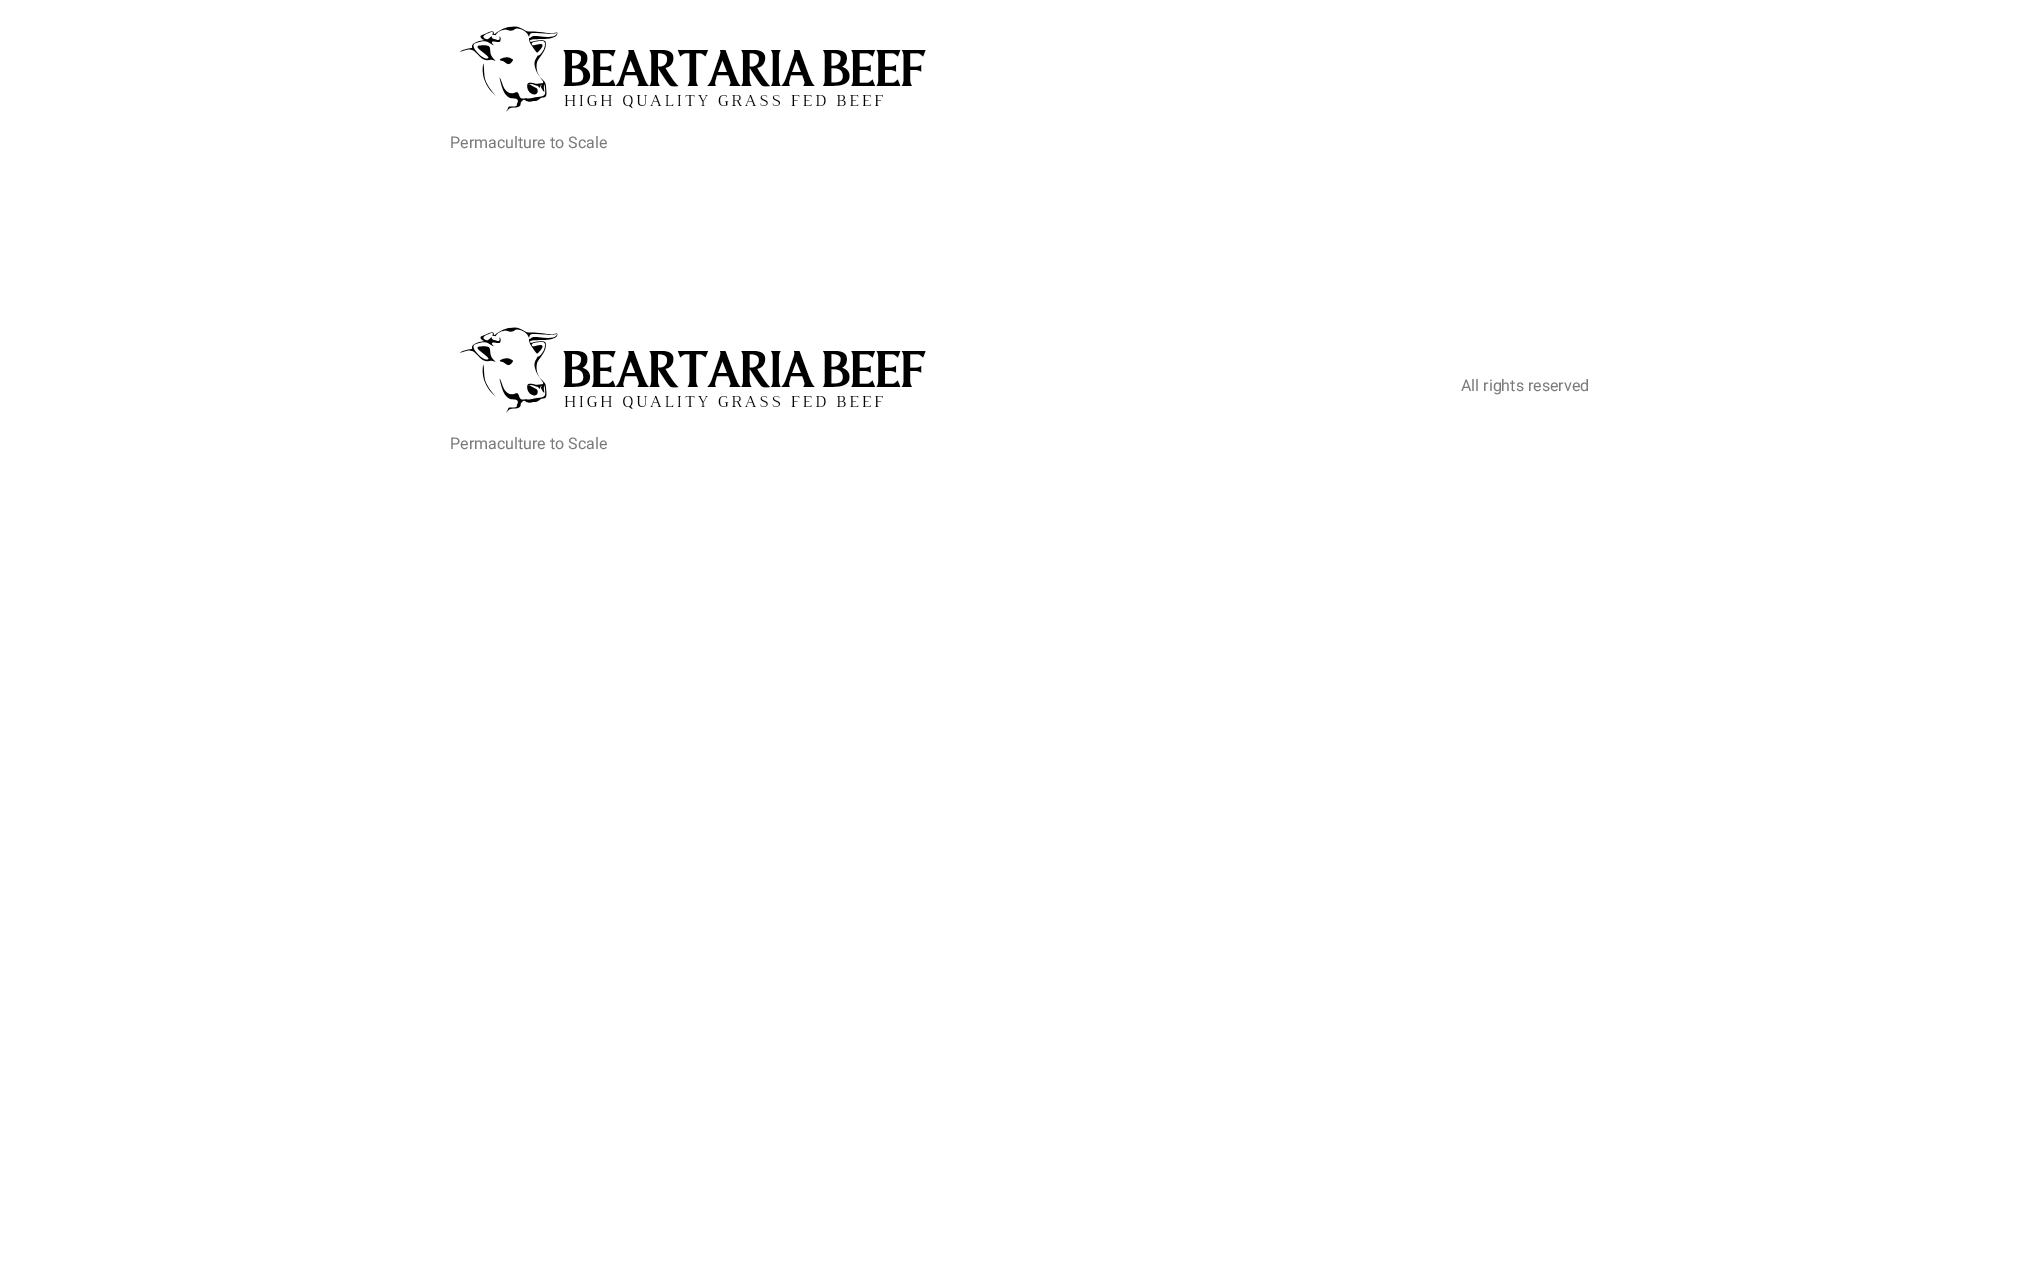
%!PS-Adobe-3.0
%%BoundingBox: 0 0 2039 1286
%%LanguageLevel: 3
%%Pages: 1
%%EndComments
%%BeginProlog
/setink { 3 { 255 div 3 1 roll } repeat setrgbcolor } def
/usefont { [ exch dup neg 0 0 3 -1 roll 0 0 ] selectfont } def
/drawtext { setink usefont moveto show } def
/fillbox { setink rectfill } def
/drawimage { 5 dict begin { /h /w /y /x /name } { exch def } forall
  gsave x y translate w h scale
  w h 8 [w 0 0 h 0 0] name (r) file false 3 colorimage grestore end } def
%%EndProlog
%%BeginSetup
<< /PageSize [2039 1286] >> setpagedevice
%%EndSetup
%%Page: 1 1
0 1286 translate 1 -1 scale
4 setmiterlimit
0 0 2039 1286 255 255 255 fillbox
(assets/img1.rgb) 459 26 467 86 drawimage
(Permaculture to Scale) 450 148 /Roboto-Regular 16 122 122 122 drawtext
(All rights reserved) 1461 391 /Roboto-Regular 16 122 122 122 drawtext
(assets/img1.rgb) 459 327 467 86 drawimage
(Permaculture to Scale) 450 449 /Roboto-Regular 16 122 122 122 drawtext
showpage
%%EOF
